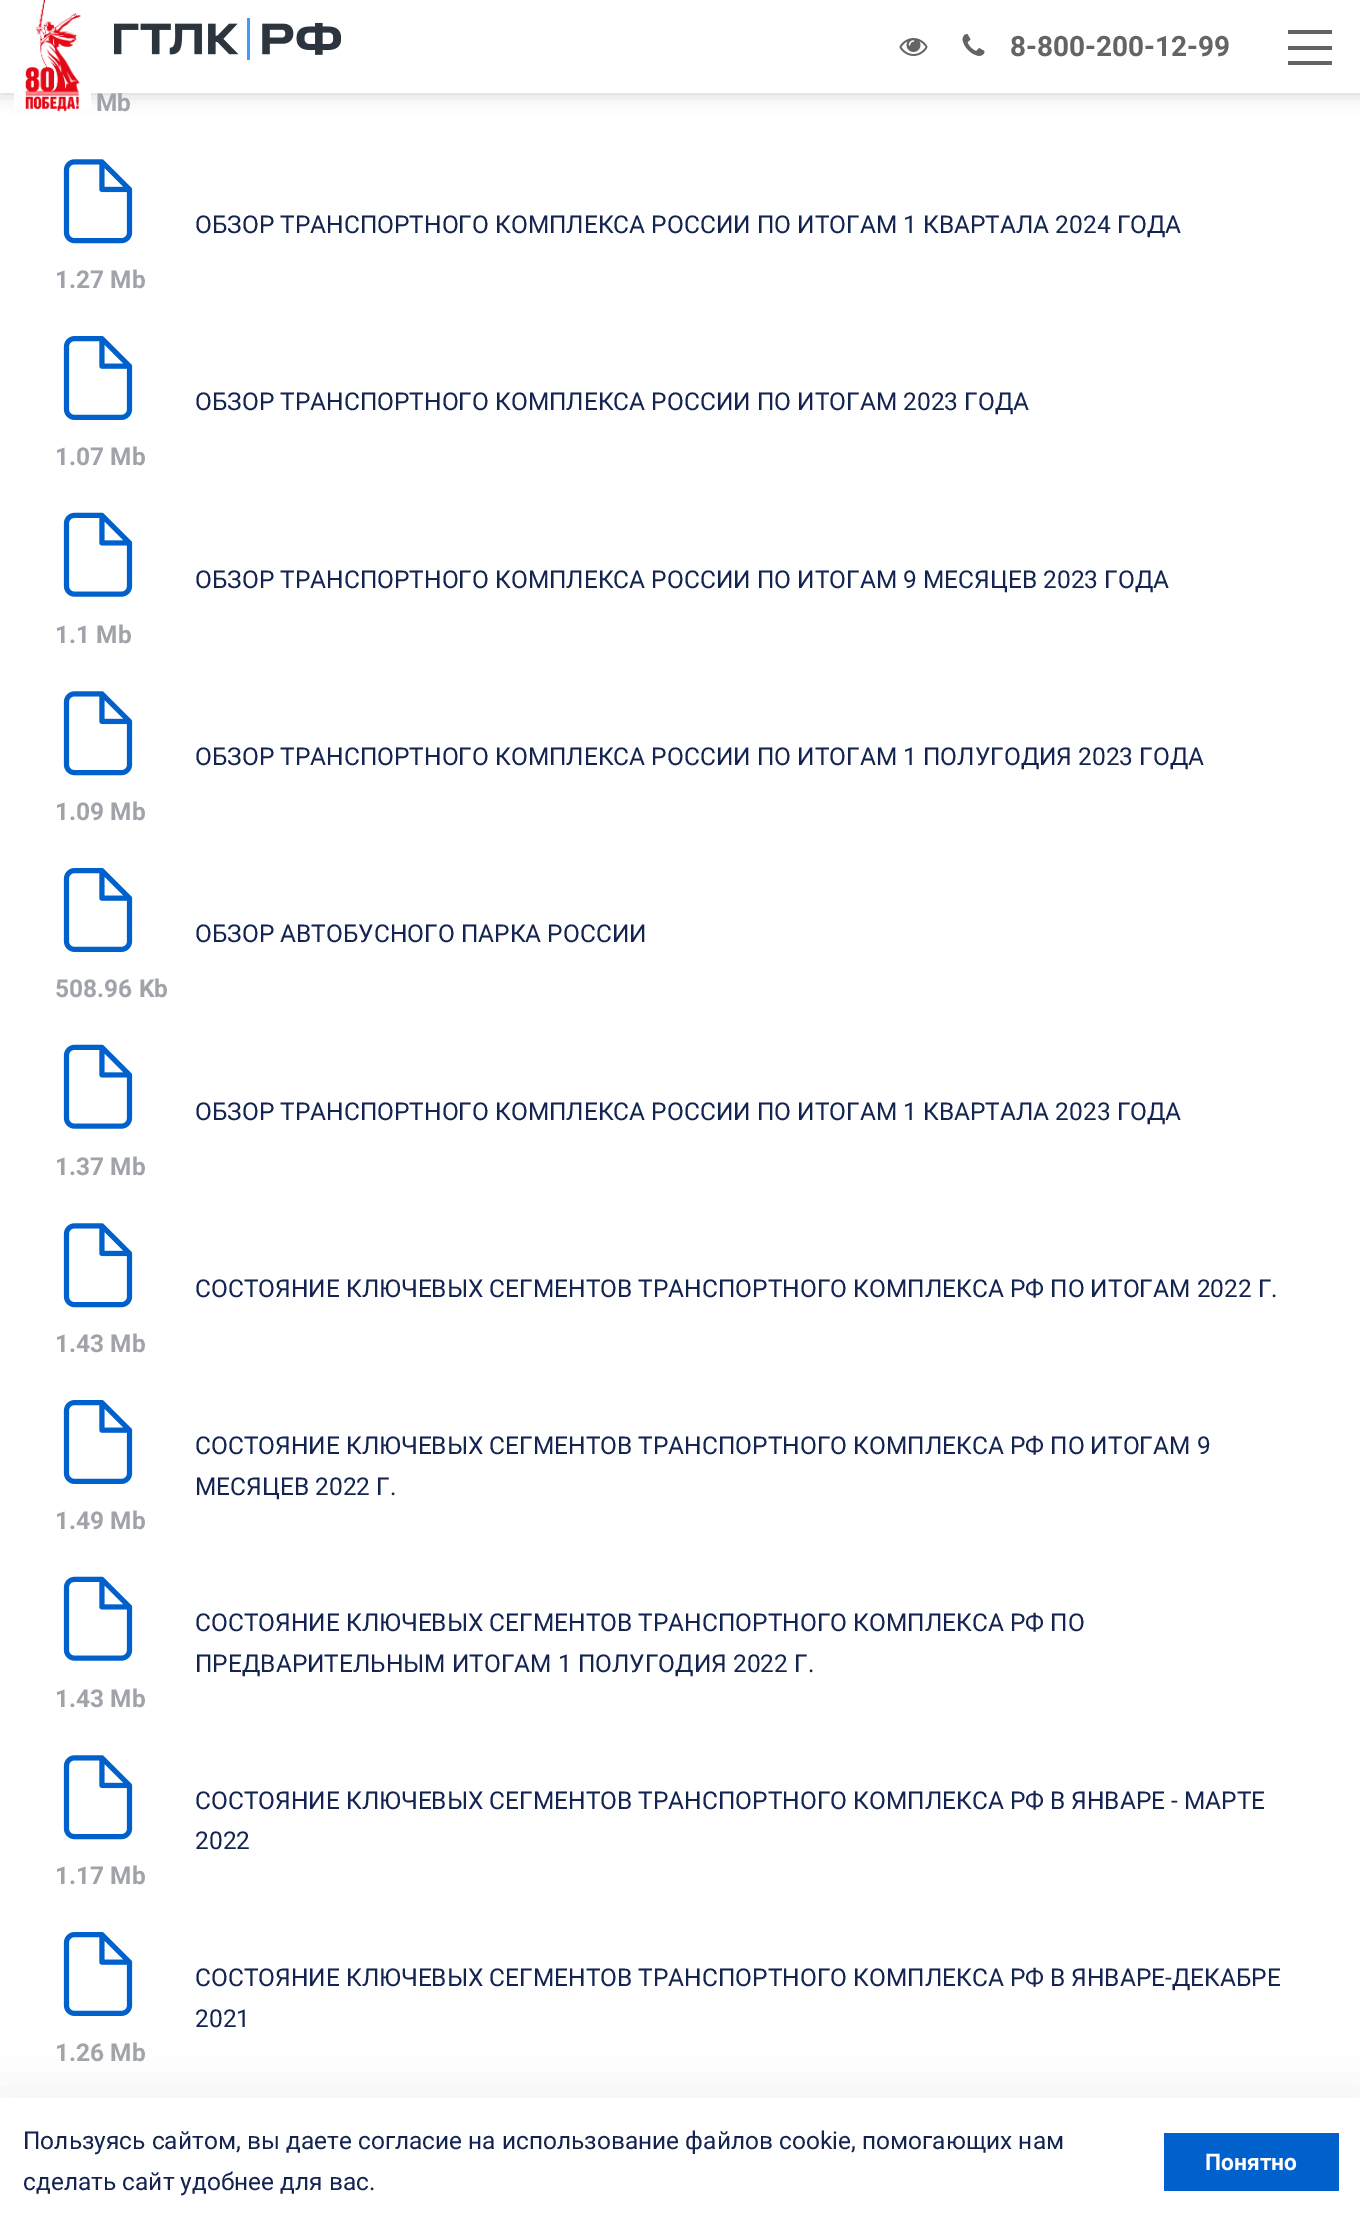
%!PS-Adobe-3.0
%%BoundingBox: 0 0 1360 2226
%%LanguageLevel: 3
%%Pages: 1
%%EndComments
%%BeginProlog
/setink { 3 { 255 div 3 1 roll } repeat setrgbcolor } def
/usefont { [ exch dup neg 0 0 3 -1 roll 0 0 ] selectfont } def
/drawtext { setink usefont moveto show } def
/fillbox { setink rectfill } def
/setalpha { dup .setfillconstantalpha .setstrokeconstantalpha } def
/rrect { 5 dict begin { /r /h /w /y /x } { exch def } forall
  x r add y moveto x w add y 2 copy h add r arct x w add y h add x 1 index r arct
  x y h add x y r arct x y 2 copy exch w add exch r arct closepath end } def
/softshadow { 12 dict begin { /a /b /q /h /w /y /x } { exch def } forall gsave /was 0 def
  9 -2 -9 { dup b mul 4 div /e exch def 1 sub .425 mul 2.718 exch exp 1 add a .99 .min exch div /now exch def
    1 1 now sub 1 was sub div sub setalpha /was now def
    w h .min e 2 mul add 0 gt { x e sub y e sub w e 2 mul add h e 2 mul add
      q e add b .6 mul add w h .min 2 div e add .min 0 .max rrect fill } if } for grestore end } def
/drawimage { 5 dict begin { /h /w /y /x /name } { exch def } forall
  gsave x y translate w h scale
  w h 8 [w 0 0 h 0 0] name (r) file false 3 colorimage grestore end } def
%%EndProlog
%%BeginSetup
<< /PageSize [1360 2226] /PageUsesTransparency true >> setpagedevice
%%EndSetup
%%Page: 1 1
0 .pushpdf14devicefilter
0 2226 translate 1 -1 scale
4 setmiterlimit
0 0 1360 2226 255 255 255 fillbox
0 0 0 setink
0 0 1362 93 0 9 0.2 softshadow
(Mb) 96 111 /Roboto-Bold 24.5 160 163 169 drawtext
0 0 1360 93 255 255 255 fillbox
14 93 77 15 255 255 255 fillbox
(assets/img1.rgb) 25 0 56 112 drawimage
(assets/img2.rgb) 114 18 227 42 drawimage
(assets/img3.rgb) 899 38 29 18 drawimage
(assets/img4.rgb) 962 34 23 22 drawimage
(8-800-200-12-99) 1010 56 /Roboto-Bold 28 99 100 102 drawtext
1288 30 44 4 99 100 102 fillbox
1288 61 44 4 99 100 102 fillbox
1288 46 44 4 99 100 102 fillbox
(ОБЗОР ТРАНСПОРТНОГО КОМПЛЕКСА РОССИИ ПО ИТОГАМ 1 КВАРТАЛА 2024 ГОДА) 195 233 /Roboto-Regular 24.5 19 36 81 drawtext
(assets/img5.rgb) 63 159 70 85 drawimage
(1.27 Mb) 55 288 /Roboto-Bold 24.5 160 163 169 drawtext
(ОБЗОР ТРАНСПОРТНОГО КОМПЛЕКСА РОССИИ ПО ИТОГАМ 2023 ГОДА) 195 410 /Roboto-Regular 24.5 19 36 81 drawtext
(assets/img6.rgb) 63 336 70 84 drawimage
(1.07 Mb) 55 465 /Roboto-Bold 24.5 160 163 169 drawtext
(ОБЗОР ТРАНСПОРТНОГО КОМПЛЕКСА РОССИИ ПО ИТОГАМ 9 МЕСЯЦЕВ 2023 ГОДА) 195 588 /Roboto-Regular 24.5 19 36 81 drawtext
(assets/img7.rgb) 63 512 70 85 drawimage
(1.1 Mb) 55 643 /Roboto-Bold 24.5 160 163 169 drawtext
(ОБЗОР ТРАНСПОРТНОГО КОМПЛЕКСА РОССИИ ПО ИТОГАМ 1 ПОЛУГОДИЯ 2023 ГОДА) 195 765 /Roboto-Regular 24.5 19 36 81 drawtext
(assets/img5.rgb) 63 691 70 85 drawimage
(1.09 Mb) 55 820 /Roboto-Bold 24.5 160 163 169 drawtext
(ОБЗОР АВТОБУСНОГО ПАРКА РОССИИ) 195 942 /Roboto-Regular 24.5 19 36 81 drawtext
(assets/img6.rgb) 63 868 70 84 drawimage
(508.96 Kb) 55 997 /Roboto-Bold 24.5 160 163 169 drawtext
(ОБЗОР ТРАНСПОРТНОГО КОМПЛЕКСА РОССИИ ПО ИТОГАМ 1 КВАРТАЛА 2023 ГОДА) 195 1120 /Roboto-Regular 24.5 19 36 81 drawtext
(assets/img7.rgb) 63 1044 70 85 drawimage
(1.37 Mb) 55 1175 /Roboto-Bold 24.5 160 163 169 drawtext
(СОСТОЯНИЕ КЛЮЧЕВЫХ СЕГМЕНТОВ ТРАНСПОРТНОГО КОМПЛЕКСА РФ ПО ИТОГАМ 2022 Г.) 195 1297 /Roboto-Regular 24.5 19 36 81 drawtext
(assets/img5.rgb) 63 1223 70 85 drawimage
(1.43 Mb) 55 1352 /Roboto-Bold 24.5 160 163 169 drawtext
(СОСТОЯНИЕ КЛЮЧЕВЫХ СЕГМЕНТОВ ТРАНСПОРТНОГО КОМПЛЕКСА РФ ПО ИТОГАМ 9) 195 1454 /Roboto-Regular 24.5 19 36 81 drawtext
(МЕСЯЦЕВ 2022 Г.) 195 1495 /Roboto-Regular 24.5 19 36 81 drawtext
(assets/img6.rgb) 63 1400 70 84 drawimage
(1.49 Mb) 55 1529 /Roboto-Bold 24.5 160 163 169 drawtext
(СОСТОЯНИЕ КЛЮЧЕВЫХ СЕГМЕНТОВ ТРАНСПОРТНОГО КОМПЛЕКСА РФ ПО) 195 1631 /Roboto-Regular 24.5 19 36 81 drawtext
(ПРЕДВАРИТЕЛЬНЫМ ИТОГАМ 1 ПОЛУГОДИЯ 2022 Г.) 195 1672 /Roboto-Regular 24.5 19 36 81 drawtext
(assets/img7.rgb) 63 1576 70 85 drawimage
(1.43 Mb) 55 1707 /Roboto-Bold 24.5 160 163 169 drawtext
(СОСТОЯНИЕ КЛЮЧЕВЫХ СЕГМЕНТОВ ТРАНСПОРТНОГО КОМПЛЕКСА РФ В ЯНВАРЕ - МАРТЕ) 195 1809 /Roboto-Regular 24.5 19 36 81 drawtext
(2022) 195 1849 /Roboto-Regular 24.5 19 36 81 drawtext
(assets/img5.rgb) 63 1755 70 85 drawimage
(1.17 Mb) 55 1884 /Roboto-Bold 24.5 160 163 169 drawtext
(СОСТОЯНИЕ КЛЮЧЕВЫХ СЕГМЕНТОВ ТРАНСПОРТНОГО КОМПЛЕКСА РФ В ЯНВАРЕ-ДЕКАБРЕ) 195 1986 /Roboto-Regular 24.5 19 36 81 drawtext
(2021) 195 2027 /Roboto-Regular 24.5 19 36 81 drawtext
(assets/img6.rgb) 63 1932 70 84 drawimage
(1.26 Mb) 55 2061 /Roboto-Bold 24.5 160 163 169 drawtext
207 207 207 setink
-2 2104 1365 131 0 26 0.4 softshadow
0 2098 1360 128 255 255 255 fillbox
(Пользуясь сайтом, вы даете согласие на использование файлов cookie, помогающих нам) 23 2149 /Roboto-Regular 24.5 19 36 81 drawtext
(сделать сайт удобнее для вас.) 23 2190 /Roboto-Regular 24.5 19 36 81 drawtext
1164 2133 175 58 0 96 204 fillbox
(Понятно) 1205 2170 /Roboto-Bold 22.75 255 255 255 drawtext
.poppdf14devicefilter showpage
%%EOF
